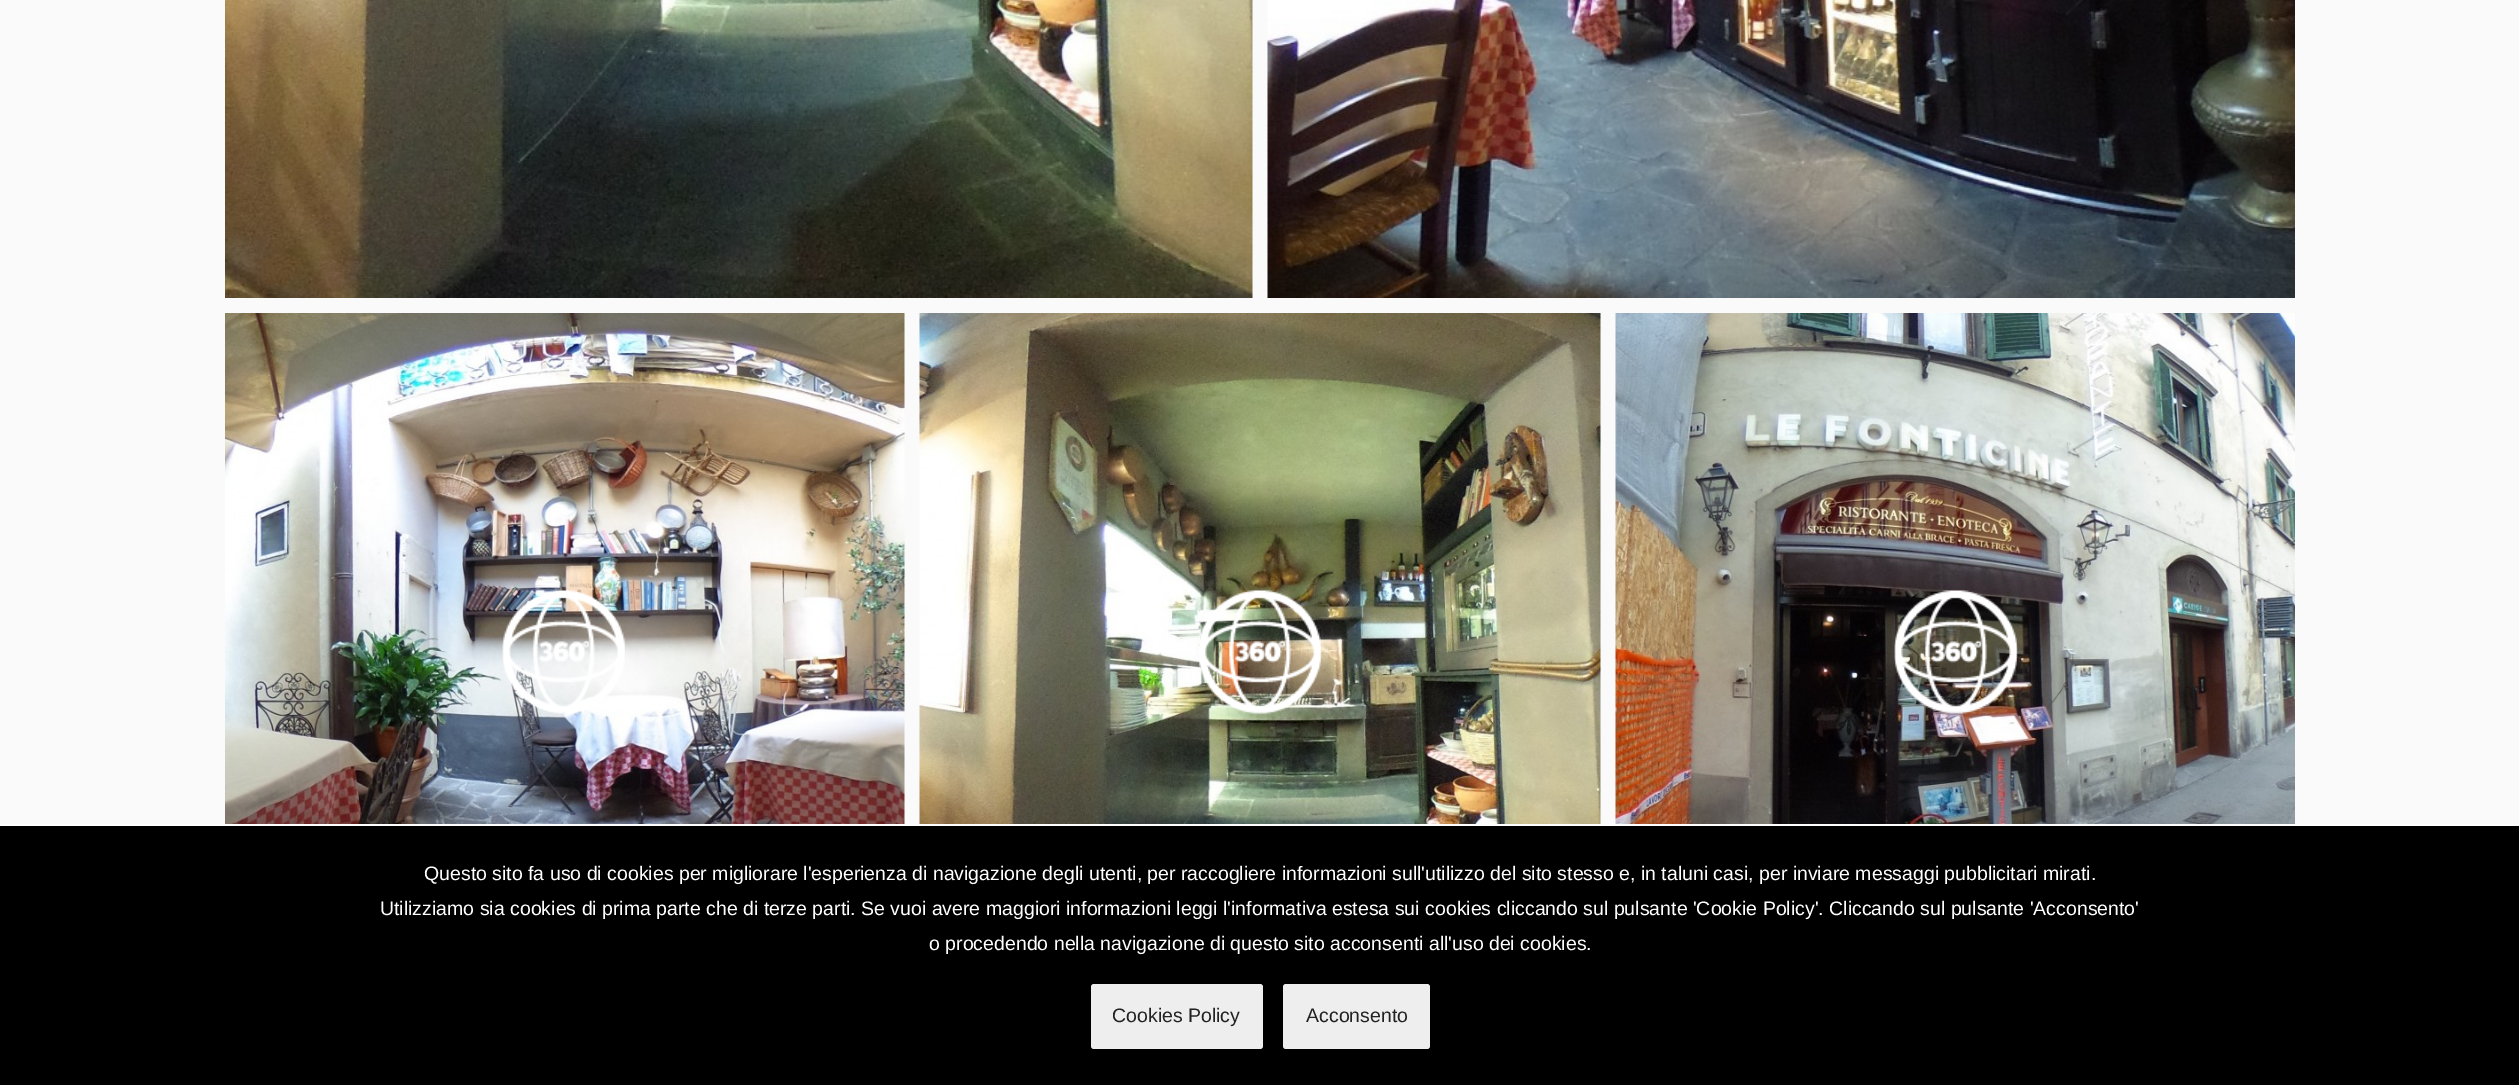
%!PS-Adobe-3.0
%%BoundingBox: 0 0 2519 1085
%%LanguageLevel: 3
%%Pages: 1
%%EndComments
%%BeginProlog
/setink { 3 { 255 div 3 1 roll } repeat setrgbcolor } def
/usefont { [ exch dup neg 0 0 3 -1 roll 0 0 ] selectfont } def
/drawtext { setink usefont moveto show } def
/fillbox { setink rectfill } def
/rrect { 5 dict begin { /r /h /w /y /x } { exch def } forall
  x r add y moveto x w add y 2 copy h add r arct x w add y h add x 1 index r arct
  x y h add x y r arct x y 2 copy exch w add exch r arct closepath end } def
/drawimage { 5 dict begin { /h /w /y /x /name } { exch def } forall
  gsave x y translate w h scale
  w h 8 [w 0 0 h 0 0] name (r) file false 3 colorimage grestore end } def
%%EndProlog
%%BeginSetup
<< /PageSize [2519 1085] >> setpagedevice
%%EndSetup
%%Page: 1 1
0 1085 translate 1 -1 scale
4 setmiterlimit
0 0 2519 1085 250 250 250 fillbox
(assets/img1.rgb) 225 0 1028 298 drawimage
(assets/img2.rgb) 1267 0 1028 298 drawimage
(assets/img3.rgb) 225 313 680 511 drawimage
(assets/img4.rgb) 502 590 123 124 drawimage
(assets/img5.rgb) 919 313 682 511 drawimage
(assets/img6.rgb) 1199 590 123 124 drawimage
(assets/img7.rgb) 1615 313 680 511 drawimage
(assets/img8.rgb) 1894 590 124 124 drawimage
0 826 2519 259 0 0 0 fillbox
0 824 2519 2 255 255 255 fillbox
(Questo sito fa uso di cookies per migliorare l'esperienza di navigazione degli utenti, per raccogliere informazioni sull'utilizzo del sito stesso e, in taluni casi, per inviare messaggi pubblicitari mirati.) 424 880 /LiberationSans-Regular 19.5 255 255 255 drawtext
(Utilizziamo sia cookies di prima parte che di terze parti. Se vuoi avere maggiori informazioni leggi l'informativa estesa sui cookies cliccando sul pulsante 'Cookie Policy'. Cliccando sul pulsante 'Acconsento') 380 915 /LiberationSans-Regular 19.5 255 255 255 drawtext
(o procedendo nella navigazione di questo sito acconsenti all'uso dei cookies.) 929 950 /LiberationSans-Regular 19.5 255 255 255 drawtext
238 238 238 setink
1091 984 172 65 3 rrect fill
(Cookies Policy) 1112 1022 /LiberationSans-Regular 19.5 34 34 34 drawtext
238 238 238 setink
1283 984 147 65 3 rrect fill
(Acconsento) 1306 1022 /LiberationSans-Regular 19.5 34 34 34 drawtext
showpage
%%EOF
